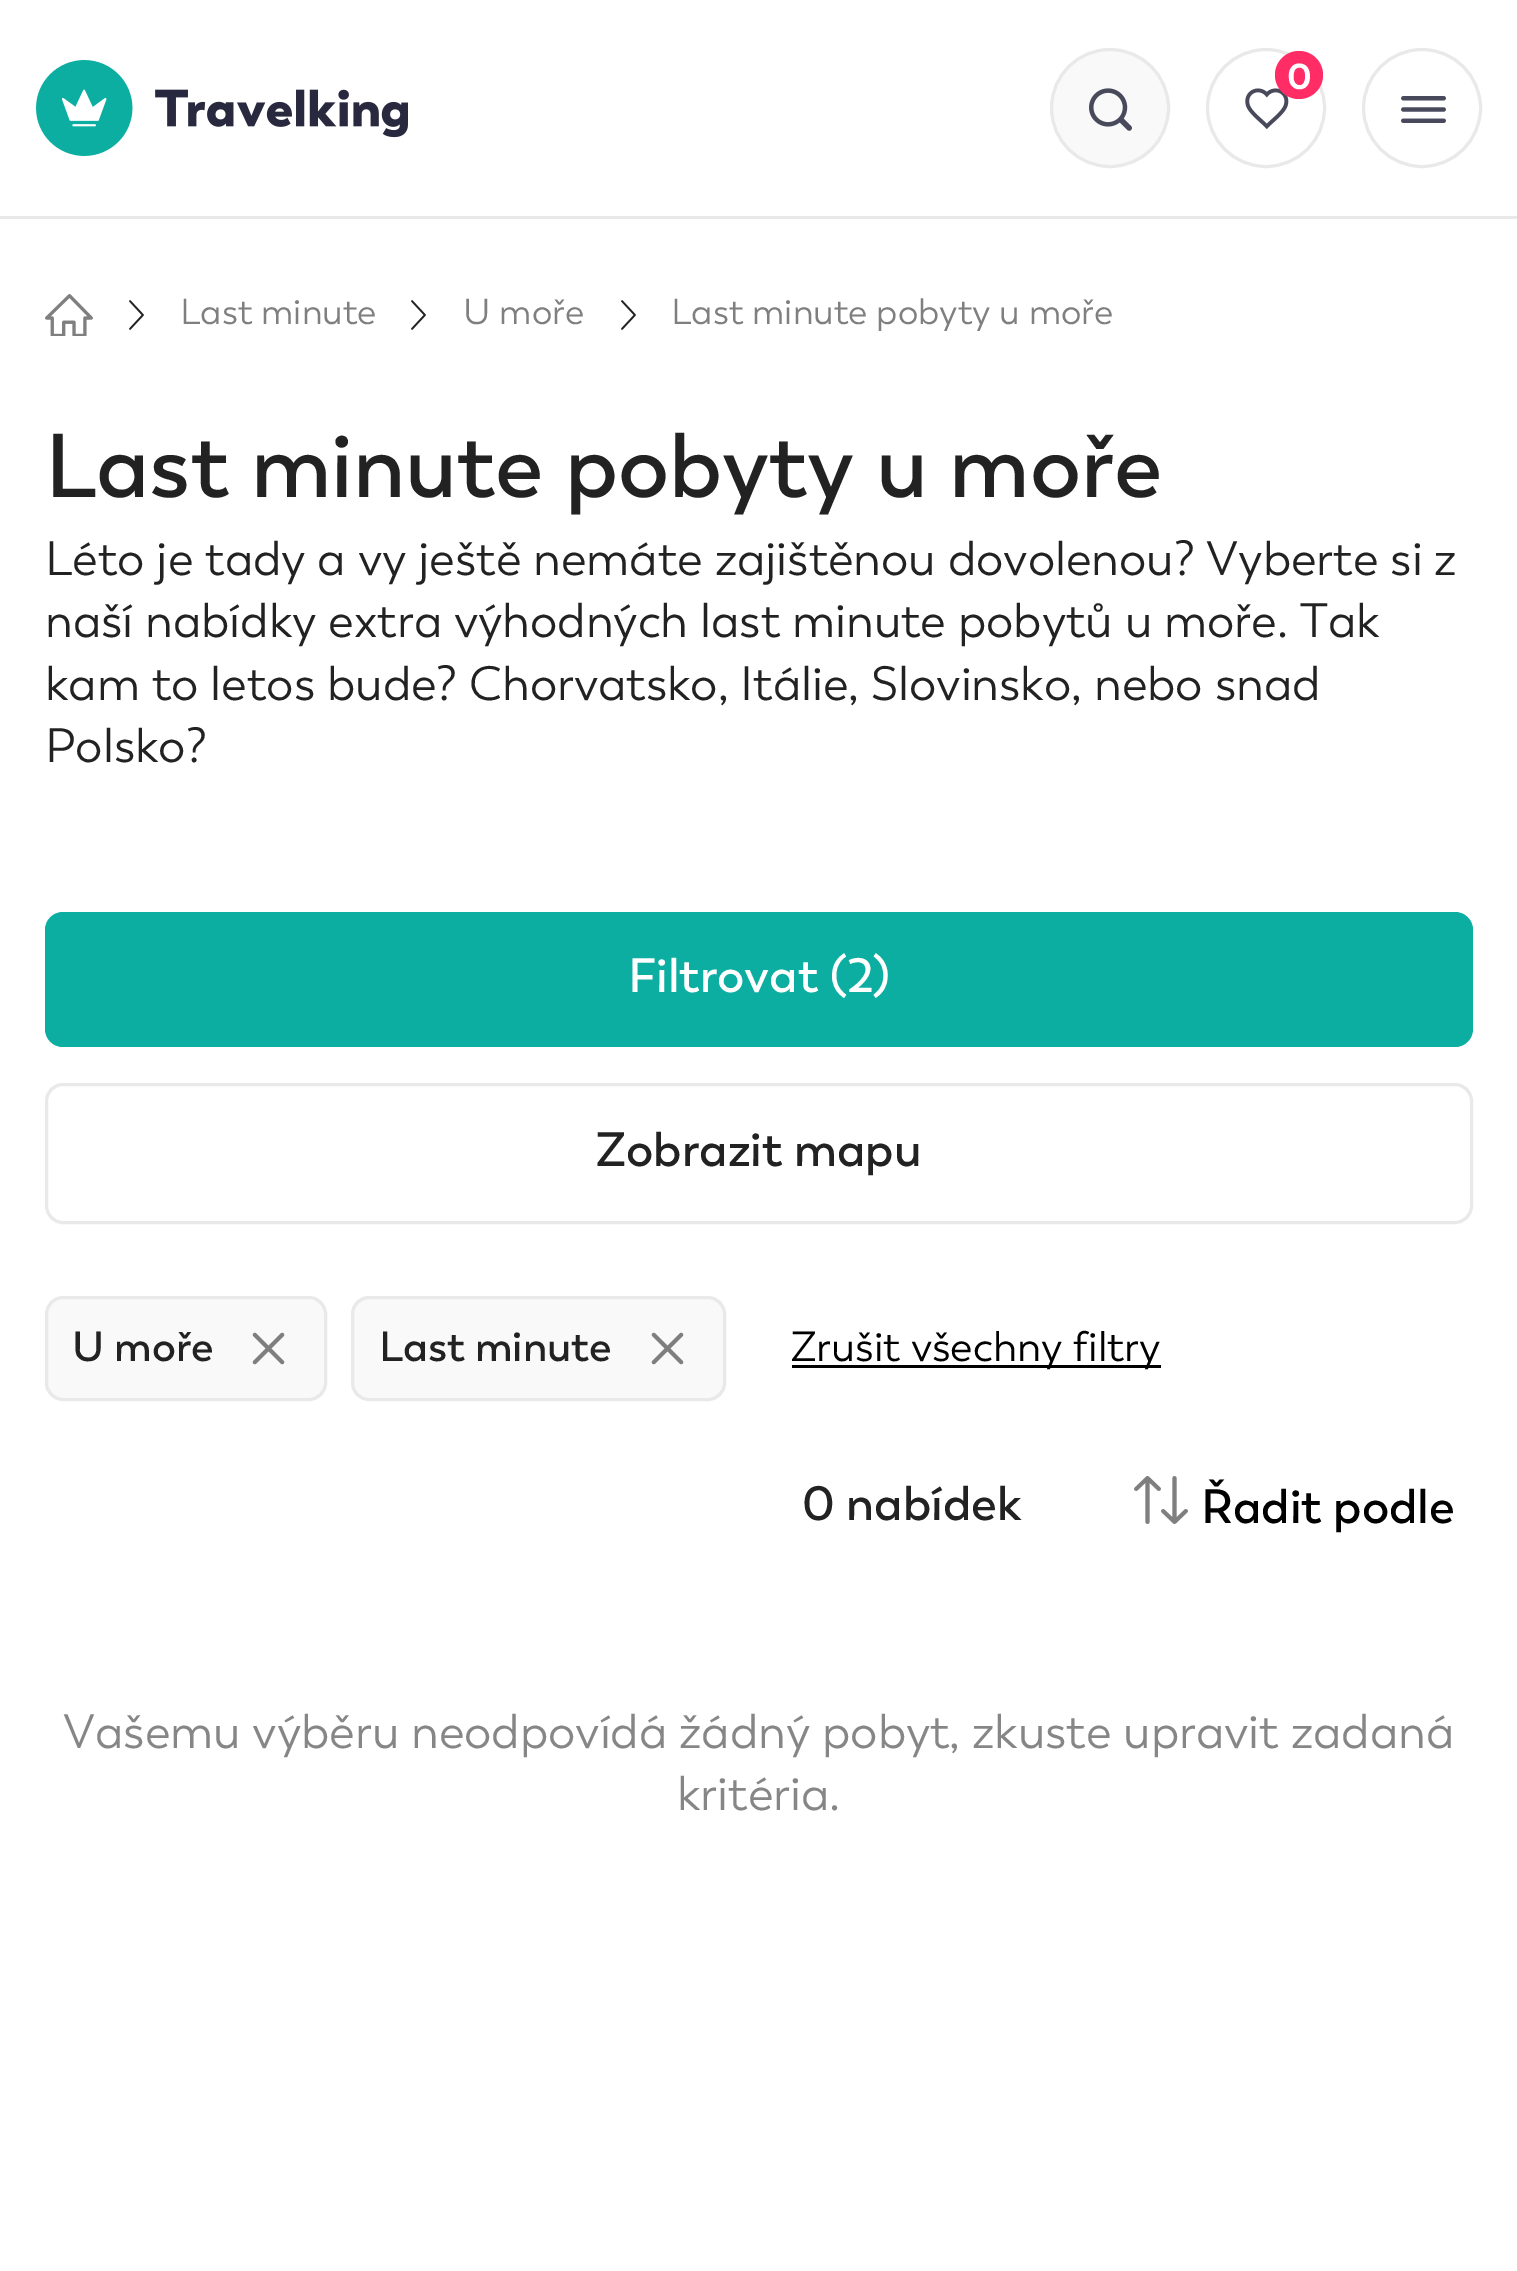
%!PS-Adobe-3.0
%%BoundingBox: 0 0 1517 2271
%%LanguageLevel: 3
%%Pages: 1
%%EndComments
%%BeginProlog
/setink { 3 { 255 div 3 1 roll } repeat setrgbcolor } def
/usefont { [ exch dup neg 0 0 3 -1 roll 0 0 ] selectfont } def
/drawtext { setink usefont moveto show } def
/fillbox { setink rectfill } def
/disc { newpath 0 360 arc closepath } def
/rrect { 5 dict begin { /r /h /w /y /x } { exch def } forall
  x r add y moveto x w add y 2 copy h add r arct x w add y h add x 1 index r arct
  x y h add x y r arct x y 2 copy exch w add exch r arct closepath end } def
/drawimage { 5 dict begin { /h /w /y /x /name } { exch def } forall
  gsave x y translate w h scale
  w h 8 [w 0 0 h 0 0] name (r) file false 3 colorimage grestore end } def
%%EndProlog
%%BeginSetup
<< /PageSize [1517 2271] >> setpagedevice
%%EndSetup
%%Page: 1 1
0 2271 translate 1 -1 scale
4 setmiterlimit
0 0 1517 2271 255 255 255 fillbox
0 216 1517 3 233 233 233 fillbox
(assets/img1.rgb) 36 60 372 96 drawimage
249 249 250 setink
1110 108 58.5 disc gsave fill grestore
233 233 233 setink
3 setlinewidth
stroke
(assets/img2.rgb) 1089 88 43 43 drawimage
1266 108 58.5 disc stroke
(assets/img3.rgb) 1245 88 44 42 drawimage
255 44 101 setink
1299 75 24 disc fill
(0) 1287 89 /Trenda-Bold 36 255 255 255 drawtext
233 233 233 setink
1422 108 58.5 disc stroke
(assets/img4.rgb) 1401 96 45 27 drawimage
(assets/img5.rgb) 45 294 48 42 drawimage
(assets/img6.rgb) 129 300 15 30 drawimage
(Last minute) 180 324 /Trenda-Regular 36 127 127 127 drawtext
(assets/img6.rgb) 411 300 15 30 drawimage
(U moře) 463 324 /Trenda-Regular 36 127 127 127 drawtext
(assets/img6.rgb) 621 300 15 30 drawimage
(Last minute pobyty u moře) 671 324 /Trenda-Regular 36 127 127 127 drawtext
(Last minute pobyty u moře) 45 497 /Trenda-SemiBold 90 34 34 34 drawtext
(Léto je tady a vy ještě nemáte zajištěnou dovolenou? Vyberte si z) 45 575 /Trenda-Regular 48 34 34 34 drawtext
(naší nabídky extra výhodných last minute pobytů u moře. Tak) 45 637 /Trenda-Regular 48 34 34 34 drawtext
(kam to letos bude? Chorvatsko, Itálie, Slovinsko, nebo snad) 45 700 /Trenda-Regular 48 34 34 34 drawtext
(Polsko?) 45 762 /Trenda-Regular 48 34 34 34 drawtext
12 174 161 setink
45 912 1428 135 18 rrect fill
(Filtrovat \(2\)) 628 992 /Trenda-SemiBold 48 255 255 255 drawtext
233 233 233 setink
46.5 1084.5 1425 138 16.5 rrect stroke
(Zobrazit mapu) 596 1166 /Trenda-SemiBold 48 34 34 34 drawtext
249 249 250 setink
46.5 1297.5 279 102 16.5 rrect gsave fill grestore
233 233 233 setink
stroke
(U moře) 72 1361 /Trenda-SemiBold 42 34 34 34 drawtext
(assets/img7.rgb) 252 1332 33 33 drawimage
249 249 250 setink
352.5 1297.5 372 102 16.5 rrect gsave fill grestore
233 233 233 setink
stroke
(Last minute) 379 1361 /Trenda-SemiBold 42 34 34 34 drawtext
(assets/img7.rgb) 651 1332 33 33 drawimage
792 1365 369 3 0 0 0 fillbox
(Zrušit všechny filtry) 791 1361 /Trenda-Regular 42 0 0 0 drawtext
(0 nabídek) 802 1520 /Trenda-SemiBold 48 34 34 34 drawtext
(assets/img8.rgb) 1134 1476 54 48 drawimage
(Řadit podle) 1201 1523 /Trenda-SemiBold 48 0 0 0 drawtext
(Vašemu výběru neodpovídá žádný pobyt, zkuste upravit zadaná) 63 1748 /Trenda-Regular 48 134 134 134 drawtext
(kritéria.) 677 1810 /Trenda-Regular 48 134 134 134 drawtext
showpage
%%EOF
